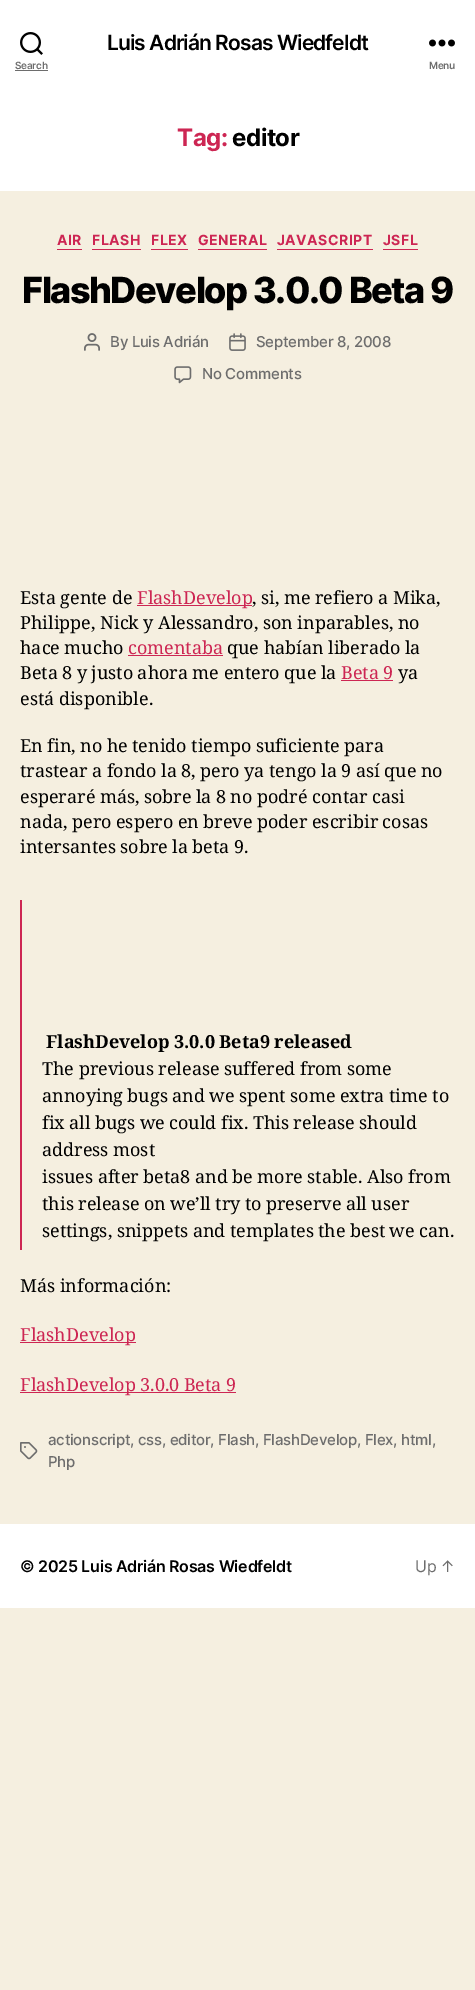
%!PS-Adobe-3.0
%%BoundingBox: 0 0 475 1990
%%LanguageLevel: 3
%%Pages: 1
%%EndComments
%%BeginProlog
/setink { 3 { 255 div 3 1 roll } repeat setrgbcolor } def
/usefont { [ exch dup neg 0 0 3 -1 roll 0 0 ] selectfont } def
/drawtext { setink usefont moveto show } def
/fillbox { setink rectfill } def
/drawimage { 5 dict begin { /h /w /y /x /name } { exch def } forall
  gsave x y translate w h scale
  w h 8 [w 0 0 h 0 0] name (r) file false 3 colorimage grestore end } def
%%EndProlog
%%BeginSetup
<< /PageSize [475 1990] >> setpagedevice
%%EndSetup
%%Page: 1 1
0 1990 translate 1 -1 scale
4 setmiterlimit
0 0 475 1990 245 239 224 fillbox
0 0 475 191 255 255 255 fillbox
/Inter-SemiBold 21 usefont
0 0 0 setink
107 50 moveto -0.9 0 (Luis Adrián Rosas Wiedfeldt) ashow
(assets/img1.rgb) 20 32 23 23 drawimage
/Inter-SemiBold 10 usefont
109 109 109 setink
15 69 moveto -0.25 0 (Search) ashow
15 70 33 1 109 109 109 fillbox
(assets/img2.rgb) 429 39 26 8 drawimage
429 69 moveto -0.25 0 (Menu) ashow
/Inter-Bold 24 usefont
205 38 83 setink
177 146 moveto -0.5 0 (Tag:) ashow
0 0 0 setink
232 146 moveto -0.5 0 (editor) ashow
57 249 25 1 205 38 83 fillbox
/Inter-Bold 14 usefont
57 245 moveto 0.5 0 (AIR) ashow
92 249 49 1 205 38 83 fillbox
92 245 moveto 0.5 0 (FLASH) ashow
151 249 37 1 205 38 83 fillbox
151 245 moveto 0.5 0 (FLEX) ashow
198 249 69 1 205 38 83 fillbox
198 245 moveto 0.5 0 (GENERAL) ashow
277 249 96 1 205 38 83 fillbox
277 245 moveto 0.5 0 (JAVASCRIPT) ashow
383 249 35 1 205 38 83 fillbox
383 245 moveto 0.5 0 (JSFL) ashow
/Inter-ExtraBold 36 usefont
0 0 0 setink
22 303 moveto -1.5 0 (FlashDevelop 3.0.0 Beta 9) ashow
(assets/img3.rgb) 84 333 16 18 drawimage
/Inter-Medium 15 usefont
109 109 109 setink
110 347 moveto -0.25 0 (By Luis Adrián) ashow
(assets/img4.rgb) 229 333 17 18 drawimage
256 347 moveto -0.25 0 (September 8, 2008) ashow
(assets/img5.rgb) 174 366 18 18 drawimage
202 379 moveto -0.25 0 (No Comments) ashow
/NotoSerif-Regular 18 usefont
0 0 0 setink
20 604 moveto -0.25 0 32 (Esta gente de) widthshow
137 605 115 1 205 38 83 fillbox
(FlashDevelop) 137 604 /NotoSerif-Regular 18 205 38 83 drawtext
0 0 0 setink
252 604 moveto -0.25 0 32 (, si, me refiero a Mika,) widthshow
20 629 moveto -0.25 0 32 (Philippe, Nick y Alessandro, son inparables, no) widthshow
20 654 moveto -0.25 0 32 (hace mucho) widthshow
(comentaba) 128 654 /NotoSerif-Regular 18 205 38 83 drawtext
128 655 95 1 205 38 83 fillbox
0 0 0 setink
227 654 moveto -0.25 0 32 (que habían liberado la) widthshow
20 679 moveto -0.25 0 32 (Beta 8 y justo ahora me entero que la) widthshow
205 38 83 setink
341 679 moveto -0.25 0 32 (Beta 9) widthshow
341 680 52 1 205 38 83 fillbox
(ya) 398 679 /NotoSerif-Regular 18 0 0 0 drawtext
20 705 moveto -0.25 0 32 (está disponible.) widthshow
20 752 moveto -0.25 0 32 (En fin, no he tenido tiempo suficiente para) widthshow
20 777 moveto -0.25 0 32 (trastear a fondo la 8, pero ya tengo la 9 así que no) widthshow
20 803 moveto -0.25 0 32 (esperaré más, sobre la 8 no podré contar casi) widthshow
20 828 moveto -0.25 0 32 (nada, pero espero en breve poder escribir cosas) widthshow
20 853 moveto -0.25 0 32 (intersantes sobre la beta 9.) widthshow
20 900 2 350 205 38 83 fillbox
/NotoSerif-Bold 18 usefont
0 0 0 setink
46 1048 moveto -0.25 0 32 (FlashDevelop 3.0.0 Beta9 released) widthshow
/NotoSerif-Regular 18 usefont
42 1075 moveto -0.25 0 32 (The previous release suffered from some) widthshow
42 1102 moveto -0.25 0 32 (annoying bugs and we spent some extra time to) widthshow
42 1129 moveto -0.25 0 32 (fix all bugs we could fix. This release should) widthshow
42 1156 moveto -0.25 0 32 (address most) widthshow
42 1183 moveto -0.25 0 32 (issues after beta8 and be more stable. Also from) widthshow
42 1210 moveto -0.25 0 32 (this release on we’ll try to preserve all user) widthshow
42 1237 moveto -0.25 0 32 (settings, snippets and templates the best we can.) widthshow
20 1292 moveto -0.25 0 32 (Más información:) widthshow
20 1342 116 1 205 38 83 fillbox
(FlashDevelop) 20 1341 /NotoSerif-Regular 18 205 38 83 drawtext
20 1392 216 1 205 38 83 fillbox
20 1391 moveto -0.25 0 32 (FlashDevelop 3.0.0 Beta 9) widthshow
(assets/img6.rgb) 20 1442 18 18 drawimage
/Inter-Medium 15 usefont
109 109 109 setink
48 1445 moveto -0.25 0 (actionscript, css, editor, Flash, FlashDevelop, Flex, html,) ashow
48 1467 moveto -0.25 0 (Php) ashow
0 1524 475 84 255 255 255 fillbox
/Inter-SemiBold 16 usefont
0 0 0 setink
20 1572 moveto -0.25 0 (© 2025 Luis Adrián Rosas Wiedfeldt) ashow
/Inter-Regular 16 usefont
109 109 109 setink
415 1572 moveto -0.25 0 (Up ↑) ashow
showpage
%%EOF
